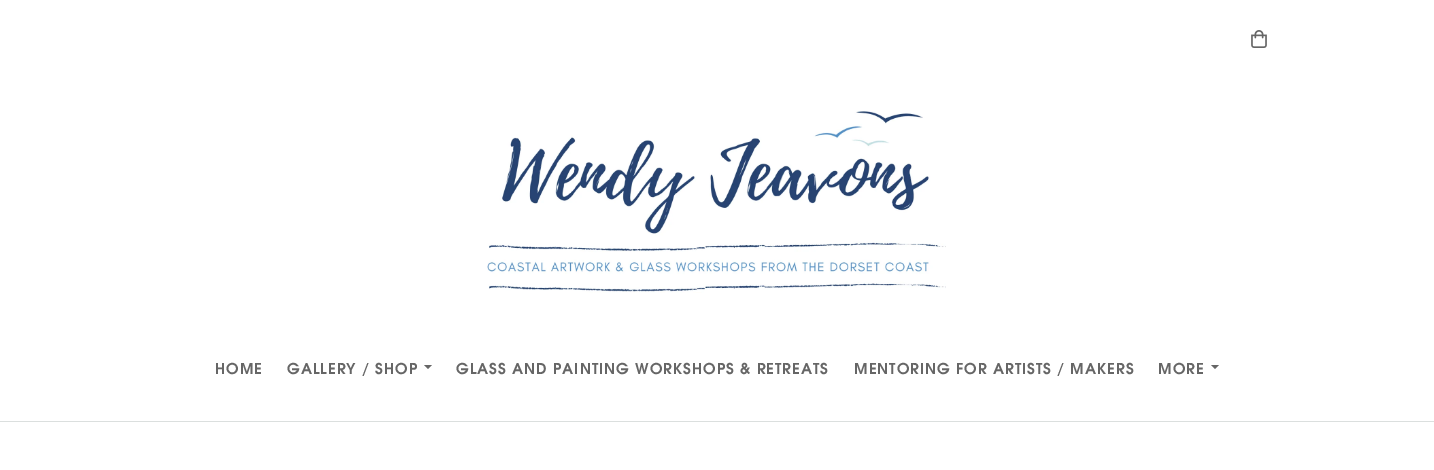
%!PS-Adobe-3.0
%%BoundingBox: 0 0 1434 470
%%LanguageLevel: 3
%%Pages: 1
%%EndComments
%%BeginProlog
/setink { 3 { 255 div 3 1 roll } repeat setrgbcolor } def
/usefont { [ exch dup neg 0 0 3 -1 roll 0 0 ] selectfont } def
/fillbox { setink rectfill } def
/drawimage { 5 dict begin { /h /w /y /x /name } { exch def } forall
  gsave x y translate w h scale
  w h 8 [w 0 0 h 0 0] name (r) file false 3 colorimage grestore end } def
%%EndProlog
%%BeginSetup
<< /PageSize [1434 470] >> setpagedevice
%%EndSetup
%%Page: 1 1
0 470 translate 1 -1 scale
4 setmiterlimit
0 0 1434 470 255 255 255 fillbox
0 421 1434 1 219 223 222 fillbox
(assets/img1.rgb) 1251 30 16 18 drawimage
(assets/img2.rgb) 487 111 459 182 drawimage
/TeXGyreAdventor-Bold 15 usefont
102 102 102 setink
215 374 moveto 1 0 (HOME) ashow
287 374 moveto 1 0 (GALLERY / SHOP) ashow
424 365 moveto 432 365 lineto 428 369 lineto closepath fill
456 374 moveto 1 0 (GLASS AND PAINTING WORKSHOPS & RETREATS) ashow
854 374 moveto 1 0 (MENTORING FOR ARTISTS / MAKERS) ashow
1158 374 moveto 1 0 (MORE) ashow
1211 365 moveto 1219 365 lineto 1215 369 lineto closepath fill
showpage
%%EOF
